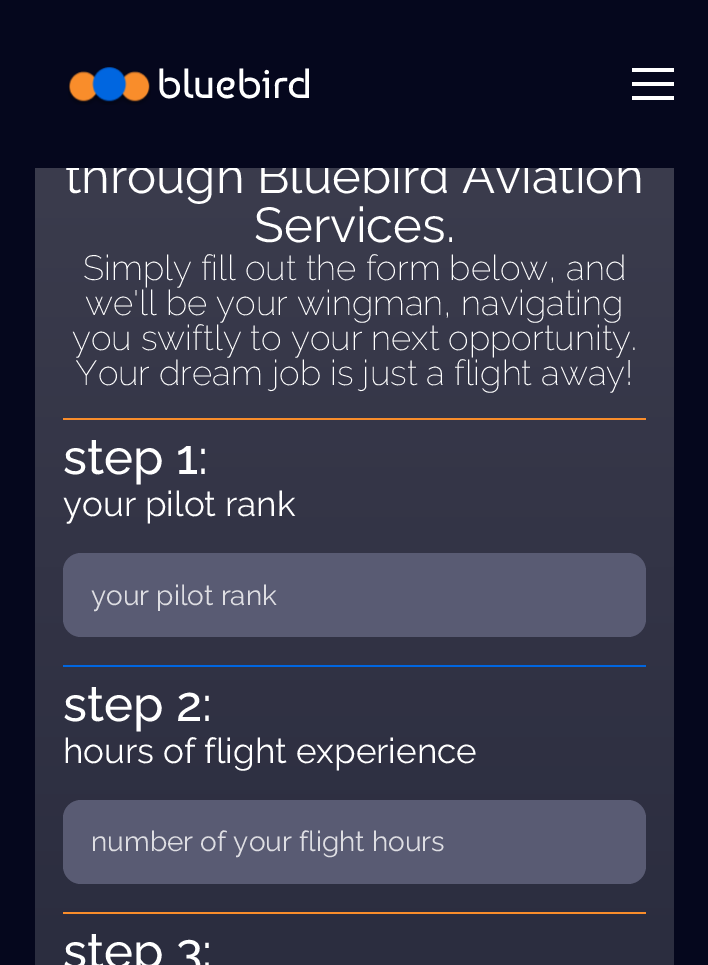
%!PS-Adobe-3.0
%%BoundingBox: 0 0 708 965
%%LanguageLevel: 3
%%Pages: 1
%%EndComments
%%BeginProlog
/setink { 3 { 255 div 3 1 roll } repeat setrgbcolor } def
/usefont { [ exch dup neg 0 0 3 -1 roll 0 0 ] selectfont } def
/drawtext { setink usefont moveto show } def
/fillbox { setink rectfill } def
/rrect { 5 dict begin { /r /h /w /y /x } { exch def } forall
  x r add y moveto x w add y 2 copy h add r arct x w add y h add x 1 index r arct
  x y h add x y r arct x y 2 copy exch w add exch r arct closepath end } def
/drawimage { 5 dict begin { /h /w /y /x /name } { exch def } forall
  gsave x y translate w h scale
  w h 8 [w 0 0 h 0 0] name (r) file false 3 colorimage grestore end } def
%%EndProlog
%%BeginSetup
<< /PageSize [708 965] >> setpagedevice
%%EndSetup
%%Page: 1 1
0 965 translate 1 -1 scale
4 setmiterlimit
0 0 708 965 5 7 29 fillbox
gsave 35 168 moveto 674 168 lineto 674 965 lineto 35 965 lineto closepath clip newpath
<< /ShadingType 2 /ColorSpace /DeviceRGB /Coords [354 -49 354 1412] /Extend [true true] /Function << /FunctionType 2 /Domain [0 1] /C0 [0.247 0.251 0.318] /C1 [0.133 0.141 0.216] /N 1 >> >> shfill grestore
(through Bluebird Aviation) 65 193 /Raleway-Regular 49 255 255 255 drawtext
66 157 571 11 5 7 29 fillbox
(assets/img1.rgb) 68 67 83 38 drawimage
(bluebird) 157 98 /Baumans-Regular 42 255 255 255 drawtext
632 68 42 4 255 255 255 fillbox
632 82 42 4 255 255 255 fillbox
632 96 42 4 255 255 255 fillbox
(Services.) 254 242 /Raleway-Regular 49 255 255 255 drawtext
(Simply fill out the form below, and) 83 280 /Raleway-ExtraLight 35 255 255 255 drawtext
(we'll be your wingman, navigating) 85 315 /Raleway-ExtraLight 35 255 255 255 drawtext
(you swiftly to your next opportunity.) 72 350 /Raleway-ExtraLight 35 255 255 255 drawtext
(Your dream job is just a flight away!) 75 385 /Raleway-ExtraLight 35 255 255 255 drawtext
63 418 583 2 249 141 43 fillbox
(step 1:) 63 474 /Raleway-Medium 49 255 255 255 drawtext
(your pilot rank) 63 516 /Raleway-Regular 35 255 255 255 drawtext
89 91 115 setink
63 553 583 84 18 rrect fill
(your pilot rank) 91 605 /Raleway-Regular 28 222 222 227 drawtext
63 665 583 2 0 102 224 fillbox
(step 2:) 63 721 /Raleway-Medium 49 255 255 255 drawtext
(hours of flight experience) 63 763 /Raleway-Regular 35 255 255 255 drawtext
89 91 115 setink
63 800 583 84 18 rrect fill
(number of your flight hours) 91 851 /Raleway-Regular 28 222 222 227 drawtext
63 912 583 2 249 141 43 fillbox
(step 3:) 63 968 /Raleway-Medium 49 255 255 255 drawtext
showpage
%%EOF
